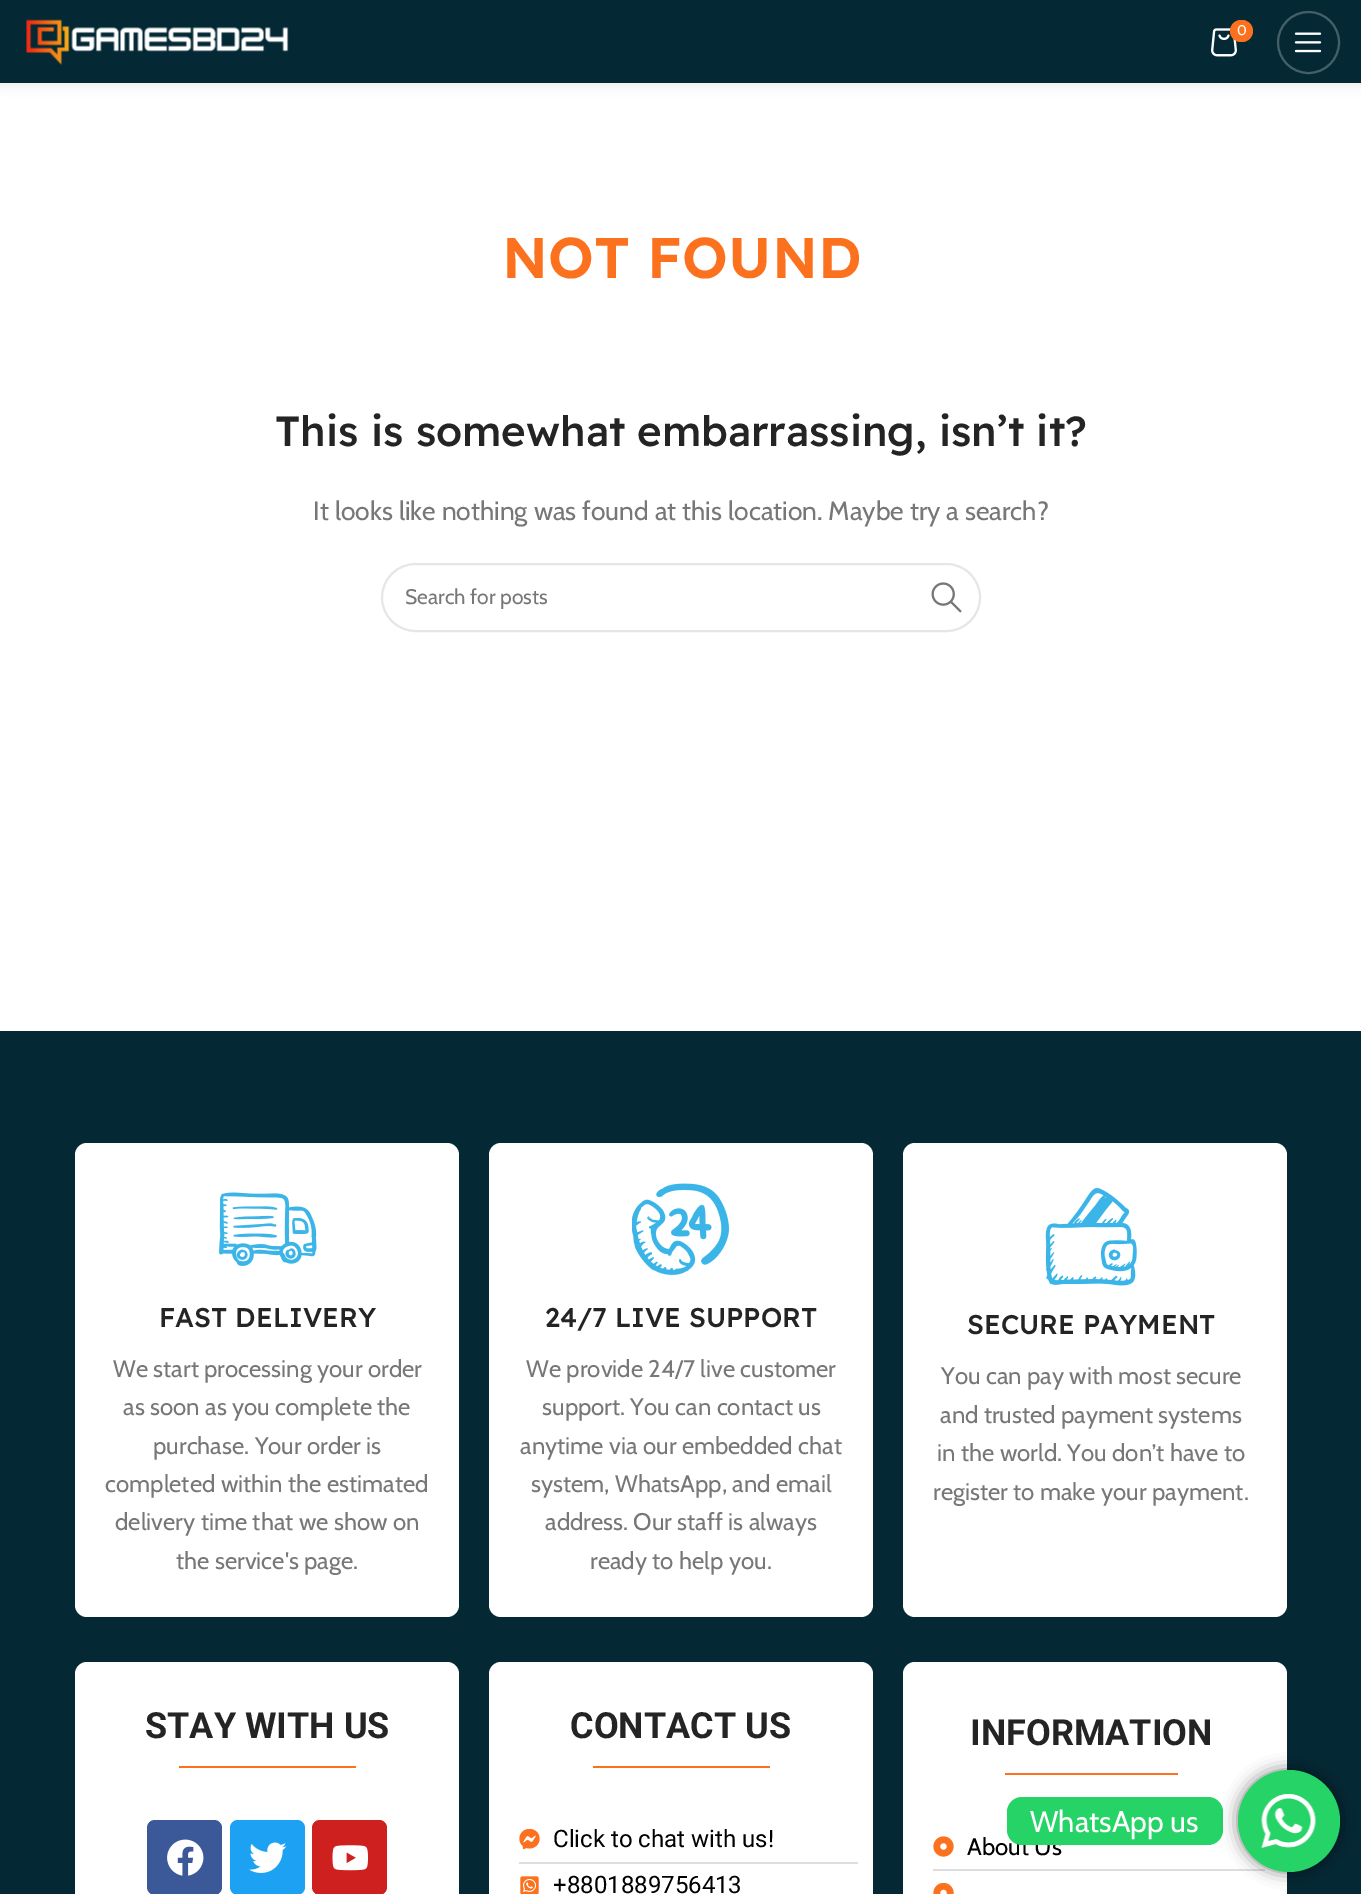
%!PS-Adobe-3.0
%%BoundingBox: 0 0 1361 1894
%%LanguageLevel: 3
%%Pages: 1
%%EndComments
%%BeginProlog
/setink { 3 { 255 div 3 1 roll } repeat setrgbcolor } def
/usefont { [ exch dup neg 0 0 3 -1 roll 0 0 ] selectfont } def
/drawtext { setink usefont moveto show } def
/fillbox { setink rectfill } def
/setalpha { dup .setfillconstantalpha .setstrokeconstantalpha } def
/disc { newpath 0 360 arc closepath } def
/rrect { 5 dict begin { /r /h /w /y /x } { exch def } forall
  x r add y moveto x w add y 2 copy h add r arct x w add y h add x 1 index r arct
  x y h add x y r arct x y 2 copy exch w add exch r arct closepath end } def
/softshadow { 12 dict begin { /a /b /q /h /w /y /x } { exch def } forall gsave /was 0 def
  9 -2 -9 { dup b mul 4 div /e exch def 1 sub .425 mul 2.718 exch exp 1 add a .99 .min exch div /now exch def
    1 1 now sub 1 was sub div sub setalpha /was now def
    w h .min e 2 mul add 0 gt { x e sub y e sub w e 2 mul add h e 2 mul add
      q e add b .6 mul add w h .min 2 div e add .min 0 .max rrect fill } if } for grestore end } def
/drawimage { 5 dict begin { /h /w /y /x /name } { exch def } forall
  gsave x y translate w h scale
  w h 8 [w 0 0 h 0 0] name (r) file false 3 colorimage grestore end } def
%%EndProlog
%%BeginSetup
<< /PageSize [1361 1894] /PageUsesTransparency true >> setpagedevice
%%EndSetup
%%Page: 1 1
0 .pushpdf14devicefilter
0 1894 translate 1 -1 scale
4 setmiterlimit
0 0 1361 1894 255 255 255 fillbox
0 0 0 setink
0 2 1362 82 0 6 0.1 softshadow
0 0 1361 83 4 41 53 fillbox
(assets/img1.rgb) 26 19 263 46 drawimage
(assets/img2.rgb) 1211 28 26 29 drawimage
251 113 29 setink
1230 20 23 22 11 rrect fill
(0) 1237 35 /Cabin-Regular 14 255 255 255 drawtext
67 95 104 setink
2 setlinewidth
1308.5 42.5 30.5 disc stroke
(assets/img3.rgb) 1294 32 28 21 drawimage
(NOT FOUND) 502 278 /ReadexPro-SemiBold 57.25 251 113 29 drawtext
(This is somewhat embarrassing, isn’t it?) 275 446 /ReadexPro-Medium 42 36 36 36 drawtext
(It looks like nothing was found at this location. Maybe try a search?) 313 520 /Cabin-Regular 26.4 119 119 119 drawtext
230 230 230 setink
382 564 598 67 33.5 rrect stroke
(Search for posts) 405 604 /Cabin-Regular 21 119 119 119 drawtext
(assets/img4.rgb) 931 582 31 31 drawimage
0 1031 1361 863 4 41 53 fillbox
255 255 255 setink
75 1143 384 474 12 rrect fill
(assets/img5.rgb) 219 1192 98 74 drawimage
(FAST DELIVERY) 159 1327 /ReadexPro-Medium 27 36 36 36 drawtext
(We start processing your order) 113 1377 /Cabin-Regular 24 119 119 119 drawtext
(as soon as you complete the) 123 1415 /Cabin-Regular 24 119 119 119 drawtext
(purchase. Your order is) 153 1454 /Cabin-Regular 24 119 119 119 drawtext
(completed within the estimated) 105 1492 /Cabin-Regular 24 119 119 119 drawtext
(delivery time that we show on) 115 1530 /Cabin-Regular 24 119 119 119 drawtext
(the service's page.) 176 1569 /Cabin-Regular 24 119 119 119 drawtext
255 255 255 setink
489 1143 384 474 12 rrect fill
(assets/img6.rgb) 632 1183 97 92 drawimage
(24/7 LIVE SUPPORT) 545 1327 /ReadexPro-Medium 27 36 36 36 drawtext
(We provide 24/7 live customer) 526 1377 /Cabin-Regular 24 119 119 119 drawtext
(support. You can contact us) 542 1415 /Cabin-Regular 24 119 119 119 drawtext
(anytime via our embedded chat) 520 1454 /Cabin-Regular 24 119 119 119 drawtext
(system, WhatsApp, and email) 531 1492 /Cabin-Regular 24 119 119 119 drawtext
(address. Our staff is always) 545 1530 /Cabin-Regular 24 119 119 119 drawtext
(ready to help you.) 590 1569 /Cabin-Regular 24 119 119 119 drawtext
255 255 255 setink
903 1143 384 474 12 rrect fill
(assets/img7.rgb) 1045 1188 92 98 drawimage
(SECURE PAYMENT) 967 1334 /ReadexPro-Medium 27 36 36 36 drawtext
(You can pay with most secure) 941 1384 /Cabin-Regular 24 119 119 119 drawtext
(and trusted payment systems) 940 1423 /Cabin-Regular 24 119 119 119 drawtext
(in the world. You don’t have to) 937 1461 /Cabin-Regular 24 119 119 119 drawtext
(register to make your payment.) 933 1500 /Cabin-Regular 24 119 119 119 drawtext
255 255 255 setink
75 1662 384 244 12 rrect fill
(STAY WITH US) 145 1738 /Roboto-Bold 36 36 36 36 drawtext
179 1766 177 2 251 113 29 fillbox
59 89 152 setink
147 1820 75 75 8 rrect fill
(assets/img8.rgb) 167 1839 37 37 drawimage
29 161 242 setink
230 1820 75 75 8 rrect fill
(assets/img9.rgb) 249 1842 38 31 drawimage
205 32 31 setink
312 1820 75 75 8 rrect fill
(assets/img10.rgb) 332 1845 36 26 drawimage
255 255 255 setink
489 1662 384 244 12 rrect fill
(CONTACT US) 570 1738 /Roboto-Bold 36 36 36 36 drawtext
593 1766 177 2 251 113 29 fillbox
(assets/img11.rgb) 519 1829 21 21 drawimage
(Click to chat with us!) 553 1847 /Roboto-Regular 24 0 0 0 drawtext
519 1862 339 2 221 221 221 fillbox
(assets/img12.rgb) 520 1876 19 18 drawimage
(+8801889756413) 553 1893 /Roboto-Regular 24 0 0 0 drawtext
255 255 255 setink
903 1662 384 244 12 rrect fill
(INFORMATION) 970 1745 /Roboto-Bold 36 36 36 36 drawtext
1005 1773 173 2 251 113 29 fillbox
(assets/img13.rgb) 933 1836 21 21 drawimage
(About Us) 967 1855 /Cabin-Regular 24 0 0 0 drawtext
933 1869 332 2 221 221 221 fillbox
(assets/img14.rgb) 933 1883 21 11 drawimage
37 211 102 setink
1007 1797 216 48 15 rrect fill
(WhatsApp us) 1030 1832 /Cabin-Regular 30 255 255 255 drawtext
0 0 0 setink
1238 1770 102 102 51 8 0.5 softshadow
37 211 102 setink
1289 1821 51 disc fill
(assets/img15.rgb) 1261 1794 55 54 drawimage
.poppdf14devicefilter showpage
%%EOF
